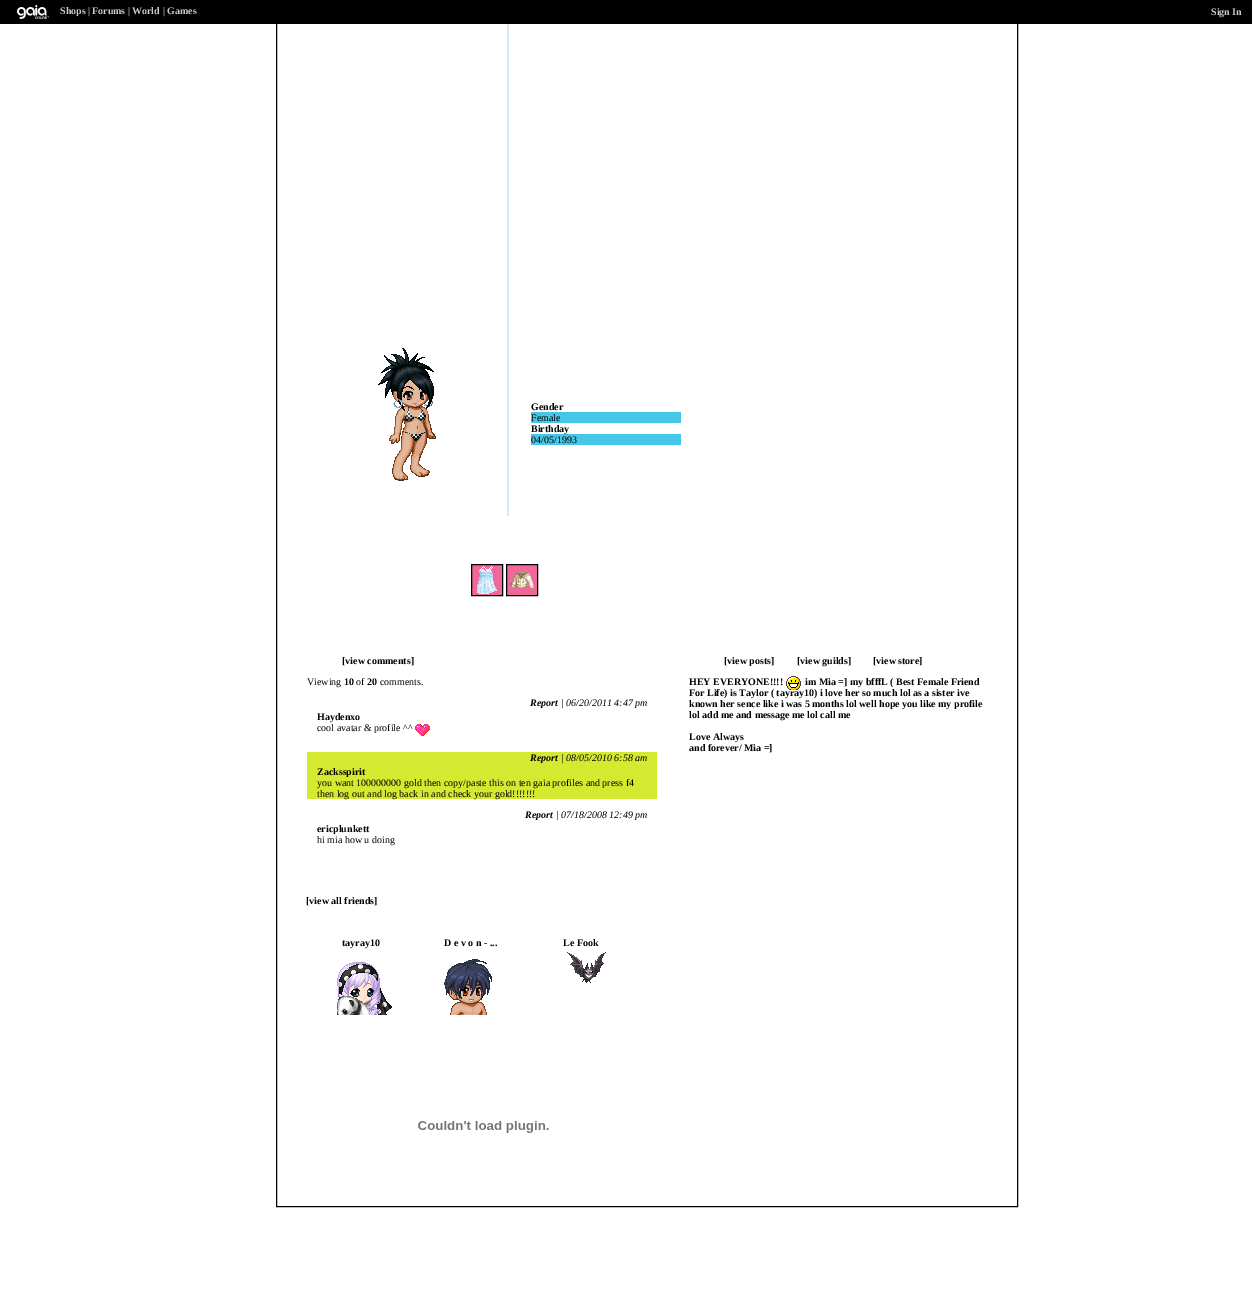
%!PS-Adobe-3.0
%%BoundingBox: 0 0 1252 1295
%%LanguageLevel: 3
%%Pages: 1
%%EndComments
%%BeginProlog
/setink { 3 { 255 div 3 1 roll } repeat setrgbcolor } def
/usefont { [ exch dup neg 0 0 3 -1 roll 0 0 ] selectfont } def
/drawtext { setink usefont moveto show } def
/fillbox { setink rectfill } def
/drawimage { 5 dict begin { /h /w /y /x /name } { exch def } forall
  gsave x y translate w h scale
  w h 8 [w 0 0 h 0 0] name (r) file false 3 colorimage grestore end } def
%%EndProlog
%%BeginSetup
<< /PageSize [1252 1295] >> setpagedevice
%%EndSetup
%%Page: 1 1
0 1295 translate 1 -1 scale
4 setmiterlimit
0 0 1252 1295 255 255 255 fillbox
0 0 0 setink
276.5 5.5 741 1201 rectstroke
507 16 2 500 216 233 243 fillbox
0 0 1252 24 0 0 0 fillbox
(assets/img1.rgb) 17 5 32 14 drawimage
(Shops) 60 14 /LiberationSerif-Bold 10 204 204 204 drawtext
(|) 88 14 /LiberationSerif-Regular 10 255 255 255 drawtext
(Forums) 92 14 /LiberationSerif-Bold 10 204 204 204 drawtext
(|) 128 14 /LiberationSerif-Regular 10 255 255 255 drawtext
(World) 132 14 /LiberationSerif-Bold 10 204 204 204 drawtext
(|) 163 14 /LiberationSerif-Regular 10 255 255 255 drawtext
(Games) 167 14 /LiberationSerif-Bold 10 204 204 204 drawtext
(Sign In) 1211 15 /LiberationSerif-Bold 10 204 204 204 drawtext
(assets/img2.rgb) 378 348 58 133 drawimage
(Gender) 531 410 /LiberationSerif-Bold 10 0 0 0 drawtext
531 412 150 11 70 199 231 fillbox
(Female) 531 421 /LiberationSerif-Regular 10 0 0 0 drawtext
531 434 150 11 70 199 231 fillbox
(Birthday) 531 432 /LiberationSerif-Bold 10 0 0 0 drawtext
(04/05/1993) 531 443 /LiberationSerif-Regular 10 0 0 0 drawtext
240 103 155 setink
471.5 564.5 moveto 502.5 564.5 lineto 502.5 595.5 lineto 471.5 595.5 lineto closepath gsave fill grestore
0 0 0 setink
stroke
240 103 155 setink
506.5 564.5 moveto 537.5 564.5 lineto 537.5 595.5 lineto 506.5 595.5 lineto closepath gsave fill grestore
0 0 0 setink
stroke
(assets/img3.rgb) 477 566 20 28 drawimage
(assets/img4.rgb) 510 572 24 17 drawimage
([view comments]) 342 664 /LiberationSerif-Bold 10 0 0 0 drawtext
(Viewing) 307 685 /LiberationSerif-Regular 10 0 0 0 drawtext
(10) 344 685 /LiberationSerif-Bold 10 0 0 0 drawtext
(of) 356 685 /LiberationSerif-Regular 10 0 0 0 drawtext
(20) 367 685 /LiberationSerif-Bold 10 0 0 0 drawtext
(comments.) 380 685 /LiberationSerif-Regular 10 0 0 0 drawtext
(Report) 530 706 /LiberationSerif-BoldItalic 10 0 0 0 drawtext
(| 06/20/2011 4:47 pm) 561 706 /LiberationSerif-Italic 10 0 0 0 drawtext
(Haydenxo) 317 720 /LiberationSerif-Bold 10 0 0 0 drawtext
(cool avatar & profile ^^) 317 731 /LiberationSerif-Regular 10 0 0 0 drawtext
(assets/img5.rgb) 415 724 15 12 drawimage
307 752 350 47 212 234 48 fillbox
(Report) 530 761 /LiberationSerif-BoldItalic 10 0 0 0 drawtext
(| 08/05/2010 6:58 am) 561 761 /LiberationSerif-Italic 10 0 0 0 drawtext
(Zacksspirit) 317 775 /LiberationSerif-Bold 10 0 0 0 drawtext
(you want 100000000 gold then copy/paste this on ten gaia profiles and press f4) 317 786 /LiberationSerif-Regular 10 0 0 0 drawtext
(then log out and log back in and check your gold!!!!!!!) 317 797 /LiberationSerif-Regular 10 0 0 0 drawtext
(Report) 525 818 /LiberationSerif-BoldItalic 10 0 0 0 drawtext
(| 07/18/2008 12:49 pm) 556 818 /LiberationSerif-Italic 10 0 0 0 drawtext
(ericplunkett) 317 832 /LiberationSerif-Bold 10 0 0 0 drawtext
(hi mia how u doing) 317 843 /LiberationSerif-Regular 10 0 0 0 drawtext
([view posts]) 724 664 /LiberationSerif-Bold 10 0 0 0 drawtext
([view guilds]) 797 664 /LiberationSerif-Bold 10 0 0 0 drawtext
([view store]) 873 664 /LiberationSerif-Bold 10 0 0 0 drawtext
(HEY EVERYONE!!!!) 689 685 /LiberationSerif-Bold 10 0 0 0 drawtext
(assets/img6.rgb) 786 676 15 14 drawimage
(im Mia =] my bfffL \( Best Female Friend) 805 685 /LiberationSerif-Bold 10 0 0 0 drawtext
(For Life\) is Taylor \( tayray10\) i love her so much lol as a sister ive) 689 696 /LiberationSerif-Bold 10 0 0 0 drawtext
(known her sence like i was 5 months lol well hope you like my profile) 689 707 /LiberationSerif-Bold 10 0 0 0 drawtext
(lol add me and message me lol call me) 689 718 /LiberationSerif-Bold 10 0 0 0 drawtext
(Love Always) 689 740 /LiberationSerif-Bold 10 0 0 0 drawtext
(and forever/ Mia =]) 689 751 /LiberationSerif-Bold 10 0 0 0 drawtext
([view all friends]) 306 904 /LiberationSerif-Bold 10 0 0 0 drawtext
(tayray10) 342 946 /LiberationSerif-Bold 10 0 0 0 drawtext
(assets/img7.rgb) 337 962 55 53 drawimage
(D e v o n - ...) 444 946 /LiberationSerif-Bold 10 0 0 0 drawtext
(assets/img8.rgb) 444 959 48 56 drawimage
(Le Fook) 563 946 /LiberationSerif-Bold 10 0 0 0 drawtext
(assets/img9.rgb) 567 952 39 31 drawimage
(assets/img10.rgb) 418 1121 131 12 drawimage
showpage
%%EOF
